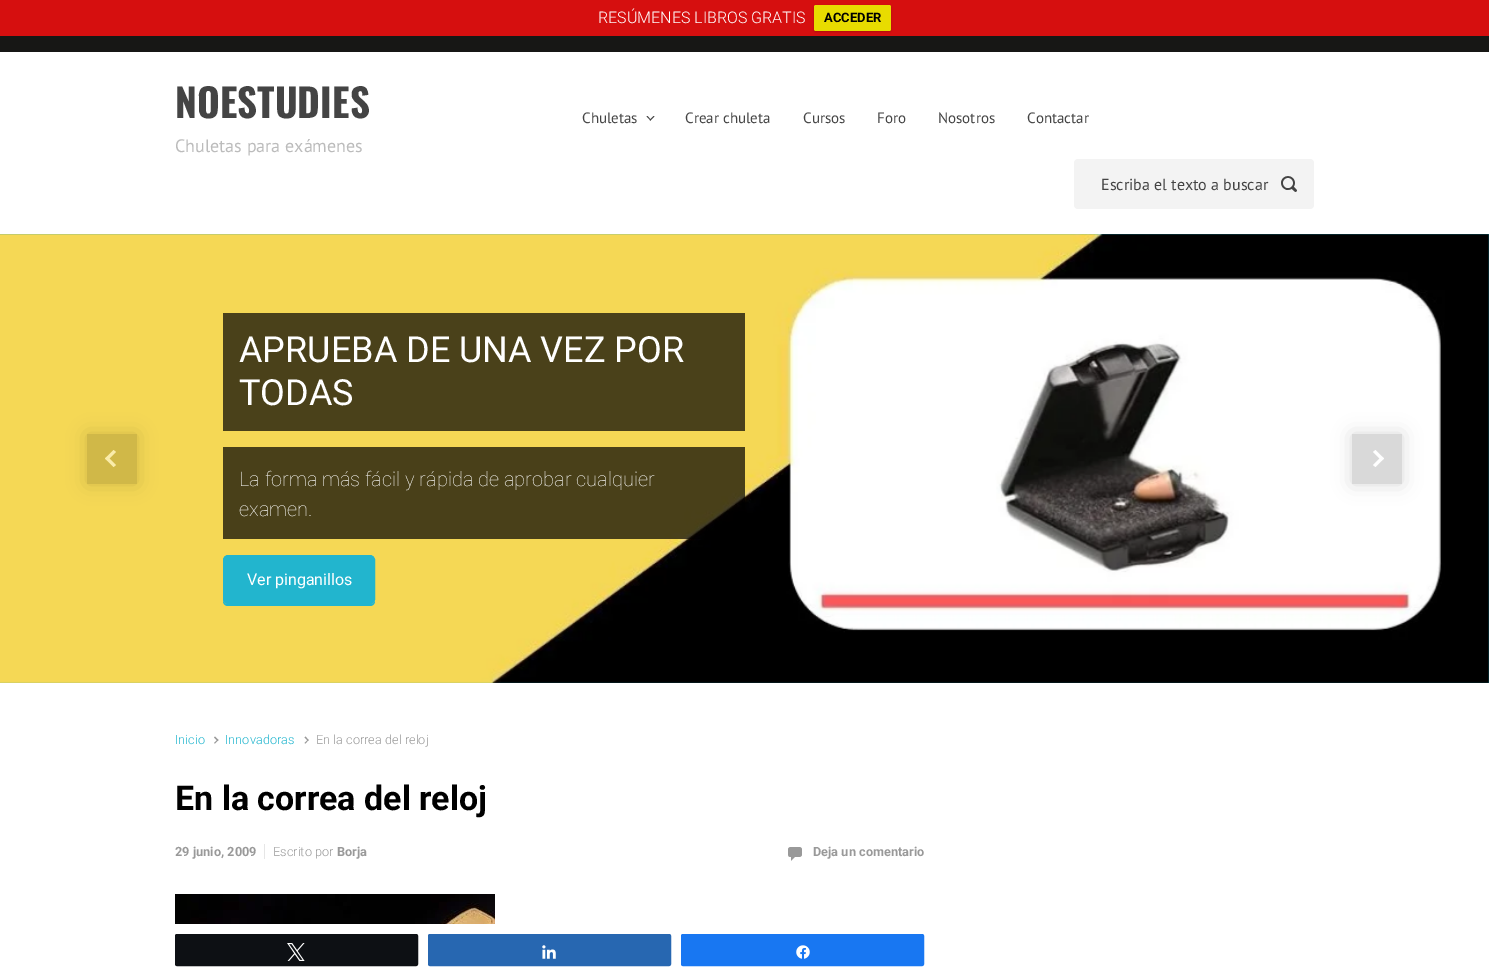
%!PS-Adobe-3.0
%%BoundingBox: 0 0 1489 978
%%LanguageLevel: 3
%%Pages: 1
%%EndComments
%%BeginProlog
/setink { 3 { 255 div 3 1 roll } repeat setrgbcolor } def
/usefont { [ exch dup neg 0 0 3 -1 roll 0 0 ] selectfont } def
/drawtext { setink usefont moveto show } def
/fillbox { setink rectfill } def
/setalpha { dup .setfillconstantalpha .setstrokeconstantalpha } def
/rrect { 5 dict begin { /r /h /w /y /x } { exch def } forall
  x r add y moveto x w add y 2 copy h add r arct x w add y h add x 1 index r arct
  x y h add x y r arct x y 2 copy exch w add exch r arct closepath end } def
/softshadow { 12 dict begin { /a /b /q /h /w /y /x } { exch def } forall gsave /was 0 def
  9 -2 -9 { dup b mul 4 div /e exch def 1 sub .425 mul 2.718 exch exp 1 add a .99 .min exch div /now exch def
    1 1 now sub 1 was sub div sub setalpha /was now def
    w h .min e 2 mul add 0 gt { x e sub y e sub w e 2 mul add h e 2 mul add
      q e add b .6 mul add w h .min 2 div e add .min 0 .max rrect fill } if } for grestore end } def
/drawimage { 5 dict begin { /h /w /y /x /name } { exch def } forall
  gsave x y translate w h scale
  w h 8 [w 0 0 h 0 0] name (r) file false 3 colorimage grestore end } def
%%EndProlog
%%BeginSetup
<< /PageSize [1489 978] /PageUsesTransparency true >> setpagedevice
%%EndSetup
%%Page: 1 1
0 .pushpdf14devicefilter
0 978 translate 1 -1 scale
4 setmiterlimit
0 0 1489 978 23 23 21 fillbox
0 0 1489 36 214 15 15 fillbox
(RESÚMENES LIBROS GRATIS) 598 23 /Roboto-Light 16 255 255 255 drawtext
0 0 0 setink
814 6 77 26 2 1 0.2 softshadow
232 220 0 setink
814 5 77 26 2 rrect fill
(ACCEDER) 824 22 /Roboto-Bold 13 0 0 0 drawtext
0 52 1489 182 255 255 255 fillbox
(NOESTUDIES) 175 118 /Oswald-Bold 39 68 68 68 drawtext
(Chuletas para exámenes) 175 152 /PTSans-Regular 18 188 188 188 drawtext
(Chuletas) 582 123 /PTSans-Regular 15 68 68 68 drawtext
653.5 116 moveto 654.5 116.5 lineto 650.5 120.5 lineto 649.5 120 lineto closepath fill
647.5 116 moveto 651 120 lineto 650.5 120.5 lineto 646.5 116.5 lineto closepath fill
(Crear chuleta) 685 123 /PTSans-Regular 15 68 68 68 drawtext
(Cursos) 803 123 /PTSans-Regular 15 68 68 68 drawtext
(Foro) 877 123 /PTSans-Regular 15 68 68 68 drawtext
(Nosotros) 938 123 /PTSans-Regular 15 68 68 68 drawtext
(Contactar) 1027 123 /PTSans-Regular 15 68 68 68 drawtext
243 243 243 setink
1074 159 240 50 4 rrect fill
(Escriba el texto a buscar) 1101 190 /PTSans-Regular 16 68 68 68 drawtext
(assets/img1.rgb) 1281 176 16 16 drawimage
gsave 0 234 moveto 1489 234 lineto 1489 683 lineto 0 683 lineto closepath clip newpath 745 459 translate 778 778 scale
<< /ShadingType 3 /ColorSpace /DeviceRGB /Coords [0 0 0 0 0 1] /Extend [true true] /Function << /FunctionType 2 /Domain [0 1] /C0 [0.133 0.71 0.808] /C1 [0.075 0.651 0.749] /N 1 >> >> shfill grestore
(assets/img2.rgb) 0 234 1489 449 drawimage
123 108 43 setink
87 434 50 50 0 10 0.3 softshadow
87 434 50 50 208 184 72 fillbox
250 236 170 setink
113.5 467 moveto 105 458.5 lineto 107.5 456.5 lineto 116 465 lineto closepath fill
107.5 460.5 moveto 105 458.5 lineto 113.5 450 lineto 116 452 lineto closepath fill
223 313 522 118 74 65 26 fillbox
(APRUEBA DE UNA VEZ POR) 239 362 /Roboto-Regular 36 255 255 255 drawtext
(TODAS) 239 405 /Roboto-Regular 36 255 255 255 drawtext
0.7 setalpha
223 447 522 92 0 0 0 fillbox
1 setalpha
(La forma más fácil y rápida de aprobar cualquier) 239 486 /Roboto-Thin 20 255 255 255 drawtext
(examen.) 239 516 /Roboto-Thin 20 255 255 255 drawtext
34 181 206 setink
223 600 moveto 223 601 lineto 223 604 225 606 228 606 curveto 370 606 lineto 373 606 375 604 375 601 curveto 375 600 lineto 375 602 373 604 370 604 curveto 228 604 lineto 225 604 223 602 223 600 curveto closepath fill
223.5 555.5 151 48 4.5 rrect gsave fill grestore
stroke
(Ver pinganillos) 247 585 /Roboto-Regular 16 255 255 255 drawtext
128 128 128 setink
1352 434 50 50 0 10 0.3 softshadow
1352 434 50 50 217 217 217 fillbox
255 255 255 setink
1375.5 450 moveto 1384 458.5 lineto 1381.5 460.5 lineto 1373 452 lineto closepath fill
1381.5 456.5 moveto 1384 458.5 lineto 1375.5 467 lineto 1373 465 lineto closepath fill
0 683 1489 295 255 255 255 fillbox
(Inicio) 175 744 /Roboto-Light 12.75 34 181 206 drawtext
153 153 153 setink
214 737.5 moveto 215 736.5 lineto 218.5 740 lineto 217.5 741 lineto closepath fill
214 743 moveto 217.5 739.5 lineto 218.5 740 lineto 215 743.5 lineto closepath fill
(Innovadoras) 225 744 /Roboto-Light 12.75 34 181 206 drawtext
153 153 153 setink
304.5 737.5 moveto 305.5 736.5 lineto 308.5 740 lineto 308 741 lineto closepath fill
304.5 743 moveto 308 739.5 lineto 308.5 740 lineto 305.5 743.5 lineto closepath fill
(En la correa del reloj) 316 744 /Roboto-Light 12.75 153 153 153 drawtext
(En la correa del reloj) 175 810 /Roboto-Bold 34 0 0 0 drawtext
(29 junio, 2009) 175 856 /Roboto-Bold 12.75 153 153 153 drawtext
264 844 1 15 230 230 230 fillbox
(Escrito por) 273 856 /Roboto-Light 12.75 153 153 153 drawtext
(Borja) 337 856 /Roboto-Bold 12.75 153 153 153 drawtext
(assets/img3.rgb) 788 847 14 14 drawimage
(Deja un comentario) 813 856 /Roboto-Bold 12.75 153 153 153 drawtext
(assets/img4.rgb) 175 894 320 30 drawimage
13 16 20 setink
175.5 934.5 242 31 1.5 rrect gsave fill grestore
stroke
(assets/img5.rgb) 287 943 18 18 drawimage
39 103 177 setink
428.5 934.5 242 31 1.5 rrect gsave fill grestore
stroke
(assets/img6.rgb) 542 945 14 14 drawimage
24 119 242 setink
681.5 934.5 242 31 1.5 rrect gsave fill grestore
stroke
(assets/img7.rgb) 796 945 14 14 drawimage
.poppdf14devicefilter showpage
%%EOF
